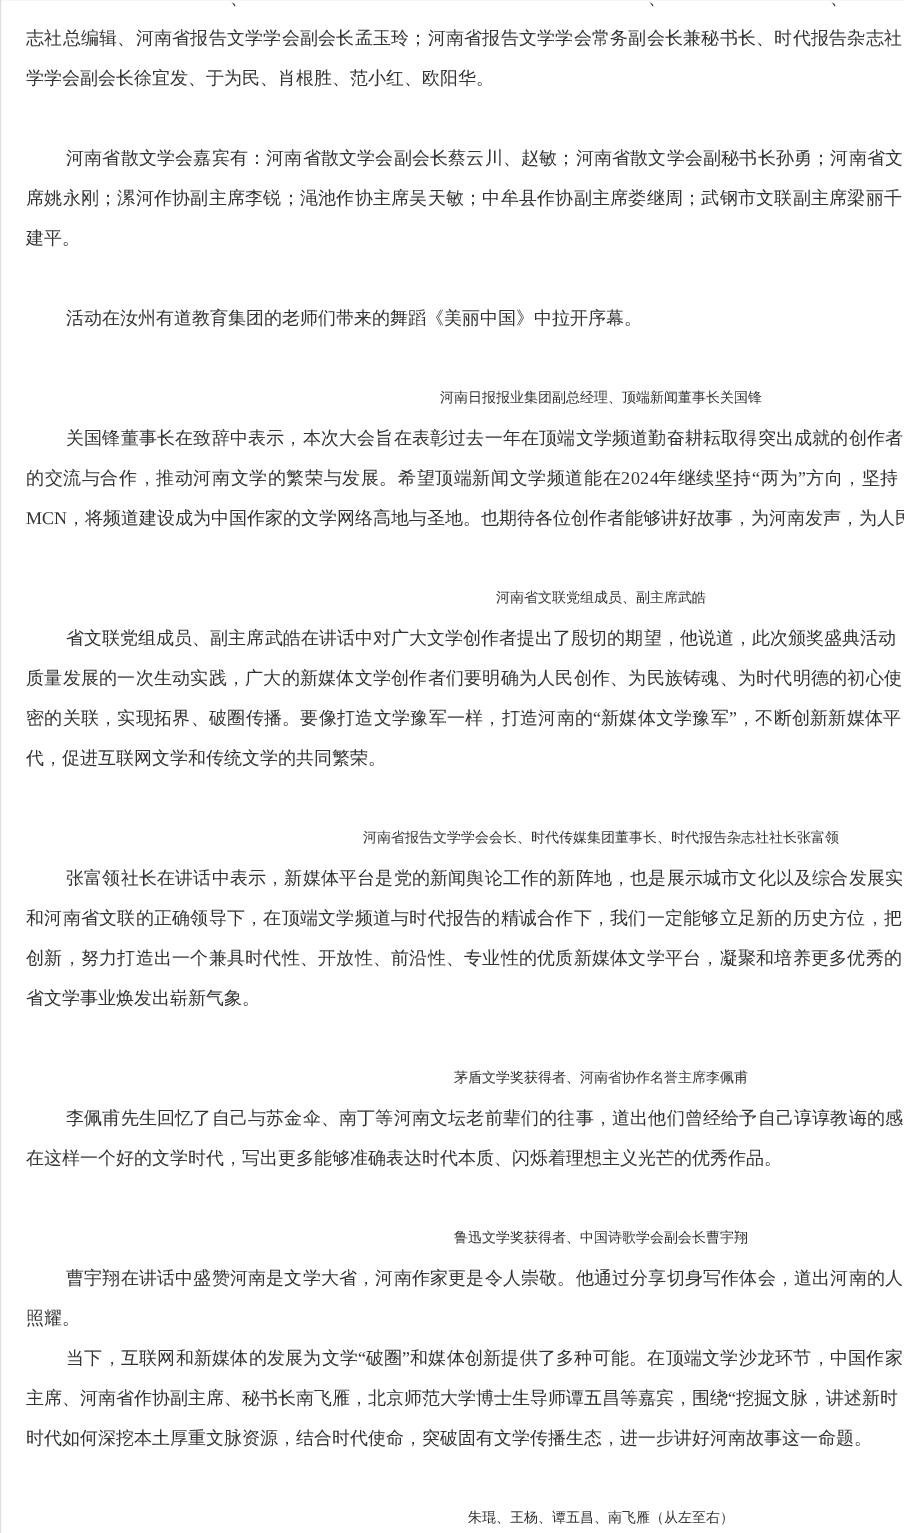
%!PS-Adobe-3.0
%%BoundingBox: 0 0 904 1533
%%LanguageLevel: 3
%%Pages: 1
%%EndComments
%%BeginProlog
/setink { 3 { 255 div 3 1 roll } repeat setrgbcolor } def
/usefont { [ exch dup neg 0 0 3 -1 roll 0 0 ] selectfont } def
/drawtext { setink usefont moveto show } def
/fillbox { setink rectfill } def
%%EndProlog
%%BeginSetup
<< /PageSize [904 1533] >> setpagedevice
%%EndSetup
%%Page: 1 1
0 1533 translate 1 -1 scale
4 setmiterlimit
0 0 904 1533 255 255 255 fillbox
224 224 224 setink
0.5 -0.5 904 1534 rectstroke
/WenQuanYiZenHei-Medium 18 usefont
51 51 51 setink
230 4 moveto 0.2 0 (、) ashow
648 4 moveto 0.2 0 (、) ashow
830 4 moveto 0.2 0 (、) ashow
26 44 moveto 0.25 0 (志社总编辑、河南省报告文学学会副会长孟玉玲；河南省报告文学学会常务副会长兼秘书长、时代报告杂志社) ashow
(学学会副会长徐宜发、于为民、肖根胜、范小红、欧阳华。) 26 84 /WenQuanYiZenHei-Medium 18 51 51 51 drawtext
66 164 moveto 0.2 0 (河南省散文学会嘉宾有：河南省散文学会副会长蔡云川、赵敏；河南省散文学会副秘书长孙勇；河南省文) ashow
26 204 moveto 0.25 0 (席姚永刚；漯河作协副主席李锐；渑池作协主席吴天敏；中牟县作协副主席娄继周；武钢市文联副主席梁丽千) ashow
(建平。) 26 244 /WenQuanYiZenHei-Medium 18 51 51 51 drawtext
(活动在汝州有道教育集团的老师们带来的舞蹈《美丽中国》中拉开序幕。) 66 324 /WenQuanYiZenHei-Medium 18 51 51 51 drawtext
(河南日报报业集团副总经理、顶端新闻董事长关国锋) 440 402 /WenQuanYiZenHei-Medium 14 51 51 51 drawtext
/WenQuanYiZenHei-Medium 18 usefont
66 444 moveto 0.2 0 (关国锋董事长在致辞中表示，本次大会旨在表彰过去一年在顶端文学频道勤奋耕耘取得突出成就的创作者) ashow
26 484 moveto 0.6 0 (的交流与合作，推动河南文学的繁荣与发展。希望顶端新闻文学频道能在) ashow
/LiberationSerif-Regular 18 usefont
621 484 moveto 0.6 0 (2024) ashow
/WenQuanYiZenHei-Medium 18 usefont
659 484 moveto 0.6 0 (年继续坚持) ashow
/LiberationSerif-Regular 18 usefont
752 484 moveto 0.6 0 (“) ashow
/WenQuanYiZenHei-Medium 18 usefont
761 484 moveto 0.6 0 (两为) ashow
/LiberationSerif-Regular 18 usefont
798 484 moveto 0.6 0 (”) ashow
/WenQuanYiZenHei-Medium 18 usefont
806 484 moveto 0.6 0 (方向，坚持) ashow
(MCN) 26 524 /LiberationSerif-Regular 18 51 51 51 drawtext
(，将频道建设成为中国作家的文学网络高地与圣地。也期待各位创作者能够讲好故事，为河南发声，为人民) 67 524 /WenQuanYiZenHei-Medium 18 51 51 51 drawtext
(河南省文联党组成员、副主席武皓) 496 602 /WenQuanYiZenHei-Medium 14 51 51 51 drawtext
/WenQuanYiZenHei-Medium 18 usefont
66 644 moveto 0.05 0 (省文联党组成员、副主席武皓在讲话中对广大文学创作者提出了殷切的期望，他说道，此次颁奖盛典活动) ashow
26 684 moveto 0.25 0 (质量发展的一次生动实践，广大的新媒体文学创作者们要明确为人民创作、为民族铸魂、为时代明德的初心使) ashow
26 724 moveto 0.3 0 (密的关联，实现拓界、破圈传播。要像打造文学豫军一样，打造河南的) ashow
/LiberationSerif-Regular 18 usefont
593 724 moveto 0.3 0 (“) ashow
/WenQuanYiZenHei-Medium 18 usefont
601 724 moveto 0.3 0 (新媒体文学豫军) ashow
/LiberationSerif-Regular 18 usefont
729 724 moveto 0.3 0 (”) ashow
/WenQuanYiZenHei-Medium 18 usefont
737 724 moveto 0.3 0 (，不断创新新媒体平) ashow
(代，促进互联网文学和传统文学的共同繁荣。) 26 764 /WenQuanYiZenHei-Medium 18 51 51 51 drawtext
(河南省报告文学学会会长、时代传媒集团董事长、时代报告杂志社社长张富领) 363 842 /WenQuanYiZenHei-Medium 14 51 51 51 drawtext
/WenQuanYiZenHei-Medium 18 usefont
66 884 moveto 0.2 0 (张富领社长在讲话中表示，新媒体平台是党的新闻舆论工作的新阵地，也是展示城市文化以及综合发展实) ashow
26 924 moveto 0.25 0 (和河南省文联的正确领导下，在顶端文学频道与时代报告的精诚合作下，我们一定能够立足新的历史方位，把) ashow
26 964 moveto 0.25 0 (创新，努力打造出一个兼具时代性、开放性、前沿性、专业性的优质新媒体文学平台，凝聚和培养更多优秀的) ashow
(省文学事业焕发出崭新气象。) 26 1004 /WenQuanYiZenHei-Medium 18 51 51 51 drawtext
(茅盾文学奖获得者、河南省协作名誉主席李佩甫) 454 1082 /WenQuanYiZenHei-Medium 14 51 51 51 drawtext
/WenQuanYiZenHei-Medium 18 usefont
66 1124 moveto 0.2 0 (李佩甫先生回忆了自己与苏金伞、南丁等河南文坛老前辈们的往事，道出他们曾经给予自己谆谆教诲的感) ashow
(在这样一个好的文学时代，写出更多能够准确表达时代本质、闪烁着理想主义光芒的优秀作品。) 26 1164 /WenQuanYiZenHei-Medium 18 51 51 51 drawtext
(鲁迅文学奖获得者、中国诗歌学会副会长曹宇翔) 454 1242 /WenQuanYiZenHei-Medium 14 51 51 51 drawtext
/WenQuanYiZenHei-Medium 18 usefont
66 1284 moveto 0.2 0 (曹宇翔在讲话中盛赞河南是文学大省，河南作家更是令人崇敬。他通过分享切身写作体会，道出河南的人) ashow
(照耀。) 26 1324 /WenQuanYiZenHei-Medium 18 51 51 51 drawtext
66 1364 moveto 0.25 0 (当下，互联网和新媒体的发展为文学) ashow
/LiberationSerif-Regular 18 usefont
358 1364 moveto 0.25 0 (“) ashow
/WenQuanYiZenHei-Medium 18 usefont
366 1364 moveto 0.25 0 (破圈) ashow
/LiberationSerif-Regular 18 usefont
402 1364 moveto 0.25 0 (”) ashow
/WenQuanYiZenHei-Medium 18 usefont
410 1364 moveto 0.25 0 (和媒体创新提供了多种可能。在顶端文学沙龙环节，中国作家) ashow
(主席、河南省作协副主席、秘书长南飞雁，北京师范大学博士生导师谭五昌等嘉宾，围绕) 26 1404 /WenQuanYiZenHei-Medium 18 51 51 51 drawtext
(“) 728 1404 /LiberationSerif-Regular 18 51 51 51 drawtext
(挖掘文脉，讲述新时) 736 1404 /WenQuanYiZenHei-Medium 18 51 51 51 drawtext
(时代如何深挖本土厚重文脉资源，结合时代使命，突破固有文学传播生态，进一步讲好河南故事这一命题。) 26 1444 /WenQuanYiZenHei-Medium 18 51 51 51 drawtext
(朱琨、王杨、谭五昌、南飞雁（从左至右）) 468 1522 /WenQuanYiZenHei-Medium 14 51 51 51 drawtext
showpage
%%EOF
